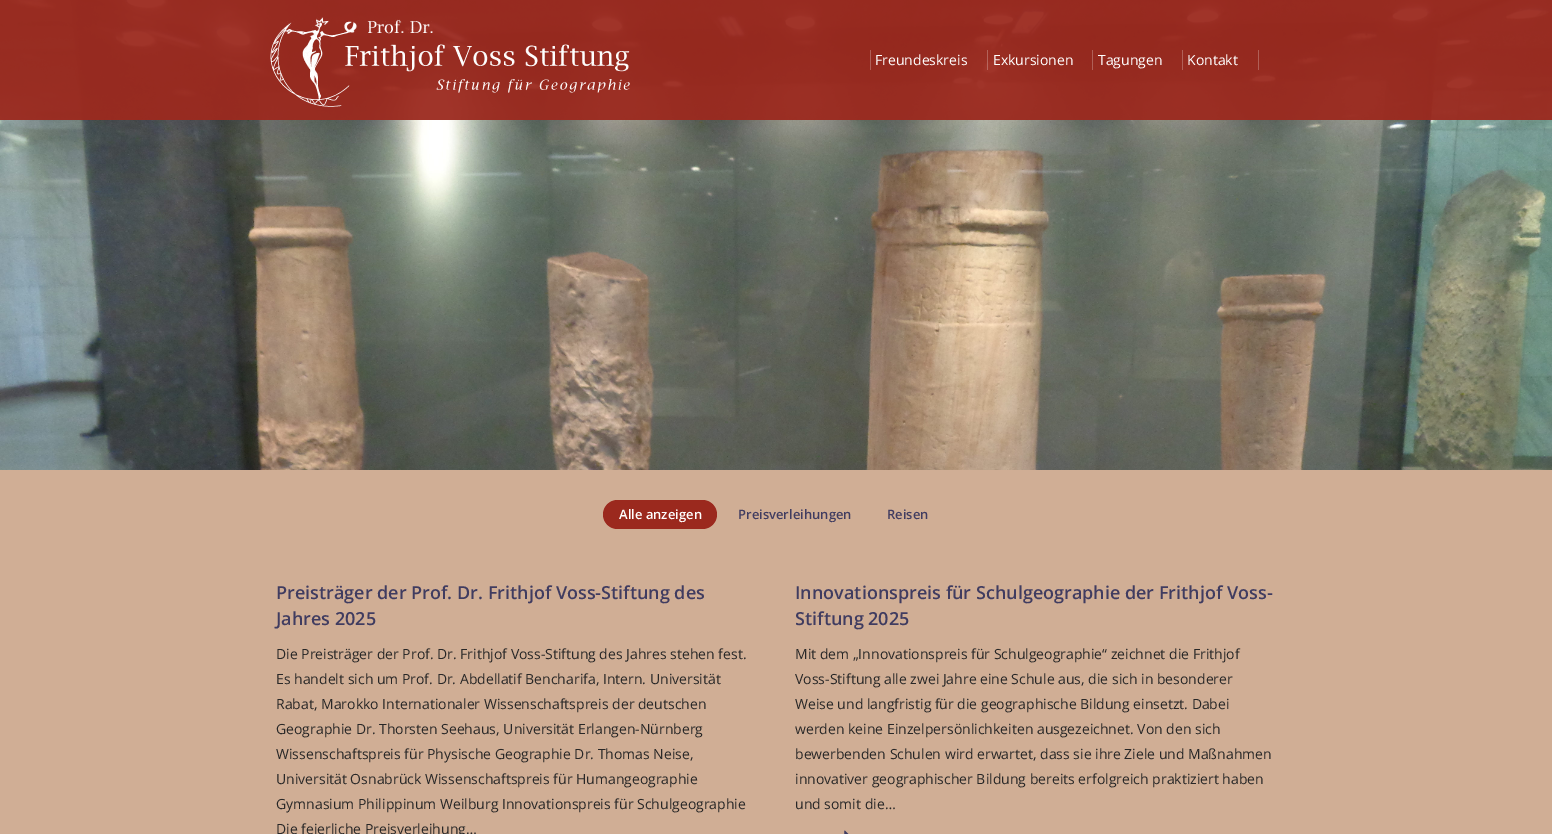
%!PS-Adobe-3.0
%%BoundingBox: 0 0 1552 834
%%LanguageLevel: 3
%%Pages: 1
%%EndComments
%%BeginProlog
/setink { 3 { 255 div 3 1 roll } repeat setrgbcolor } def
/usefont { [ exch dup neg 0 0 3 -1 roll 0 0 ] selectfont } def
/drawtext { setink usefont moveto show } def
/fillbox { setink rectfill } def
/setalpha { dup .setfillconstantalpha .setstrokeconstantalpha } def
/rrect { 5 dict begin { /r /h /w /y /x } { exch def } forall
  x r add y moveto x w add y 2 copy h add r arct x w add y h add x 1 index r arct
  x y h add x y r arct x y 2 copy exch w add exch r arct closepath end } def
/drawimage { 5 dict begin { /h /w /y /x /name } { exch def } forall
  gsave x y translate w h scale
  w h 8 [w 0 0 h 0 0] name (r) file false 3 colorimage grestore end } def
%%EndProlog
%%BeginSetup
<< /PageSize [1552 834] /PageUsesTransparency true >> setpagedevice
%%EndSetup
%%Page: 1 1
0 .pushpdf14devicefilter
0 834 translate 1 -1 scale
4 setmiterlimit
0 0 1552 834 208 174 149 fillbox
(assets/img1.rgb) 0 0 1552 470 drawimage
0.95 setalpha
0 0 1552 120 155 41 30 fillbox
1 setalpha
(assets/img2.rgb) 270 17 360 90 drawimage
870 50 1 20 176 95 87 fillbox
(Freundeskreis) 875 65 /OpenSans-Regular 14 255 255 255 drawtext
0.25 setalpha
987 50 1 20 255 255 255 fillbox
1 setalpha
(Exkursionen) 993 65 /OpenSans-Regular 14 255 255 255 drawtext
1092 50 1 20 176 95 87 fillbox
(Tagungen) 1098 65 /OpenSans-Regular 14 255 255 255 drawtext
1182 50 1 20 177 96 88 fillbox
(Kontakt) 1187 65 /OpenSans-Regular 14 255 255 255 drawtext
1258 50 1 20 176 95 87 fillbox
155 41 30 setink
603 500 114 29 14.5 rrect fill
(Alle anzeigen) 619 519 /OpenSans-SemiBold 13 255 255 255 drawtext
(Preisverleihungen) 738 519 /OpenSans-SemiBold 13 64 60 96 drawtext
(Reisen) 887 519 /OpenSans-SemiBold 13 64 60 96 drawtext
(Preisträger der Prof. Dr. Frithjof Voss-Stiftung des) 276 599 /OpenSans-SemiBold 18 64 60 96 drawtext
(Jahres 2025) 276 625 /OpenSans-SemiBold 18 64 60 96 drawtext
(Die Preisträger der Prof. Dr. Frithjof Voss-Stiftung des Jahres stehen fest.) 276 659 /OpenSans-Regular 14 40 39 39 drawtext
(Es handelt sich um Prof. Dr. Abdellatif Bencharifa, Intern. Universität) 276 684 /OpenSans-Regular 14 40 39 39 drawtext
(Rabat, Marokko Internationaler Wissenschaftspreis der deutschen) 276 709 /OpenSans-Regular 14 40 39 39 drawtext
(Geographie Dr. Thorsten Seehaus, Universität Erlangen-Nürnberg) 276 734 /OpenSans-Regular 14 40 39 39 drawtext
(Wissenschaftspreis für Physische Geographie Dr. Thomas Neise,) 276 759 /OpenSans-Regular 14 40 39 39 drawtext
(Universität Osnabrück Wissenschaftspreis für Humangeographie) 276 784 /OpenSans-Regular 14 40 39 39 drawtext
(Gymnasium Philippinum Weilburg Innovationspreis für Schulgeographie) 276 809 /OpenSans-Regular 14 40 39 39 drawtext
(Die feierliche Preisverleihung…) 276 834 /OpenSans-Regular 14 40 39 39 drawtext
(Innovationspreis für Schulgeographie der Frithjof Voss-) 795 599 /OpenSans-SemiBold 18 64 60 96 drawtext
(Stiftung 2025) 795 625 /OpenSans-SemiBold 18 64 60 96 drawtext
(Mit dem „Innovationspreis für Schulgeographie“ zeichnet die Frithjof) 795 659 /OpenSans-Regular 14 40 39 39 drawtext
(Voss-Stiftung alle zwei Jahre eine Schule aus, die sich in besonderer) 795 684 /OpenSans-Regular 14 40 39 39 drawtext
(Weise und langfristig für die geographische Bildung einsetzt. Dabei) 795 709 /OpenSans-Regular 14 40 39 39 drawtext
(werden keine Einzelpersönlichkeiten ausgezeichnet. Von den sich) 795 734 /OpenSans-Regular 14 40 39 39 drawtext
(bewerbenden Schulen wird erwartet, dass sie ihre Ziele und Maßnahmen) 795 759 /OpenSans-Regular 14 40 39 39 drawtext
(innovativer geographischer Bildung bereits erfolgreich praktiziert haben) 795 784 /OpenSans-Regular 14 40 39 39 drawtext
(und somit die…) 795 809 /OpenSans-Regular 14 40 39 39 drawtext
(assets/img3.rgb) 844 830 5 4 drawimage
.poppdf14devicefilter showpage
%%EOF
